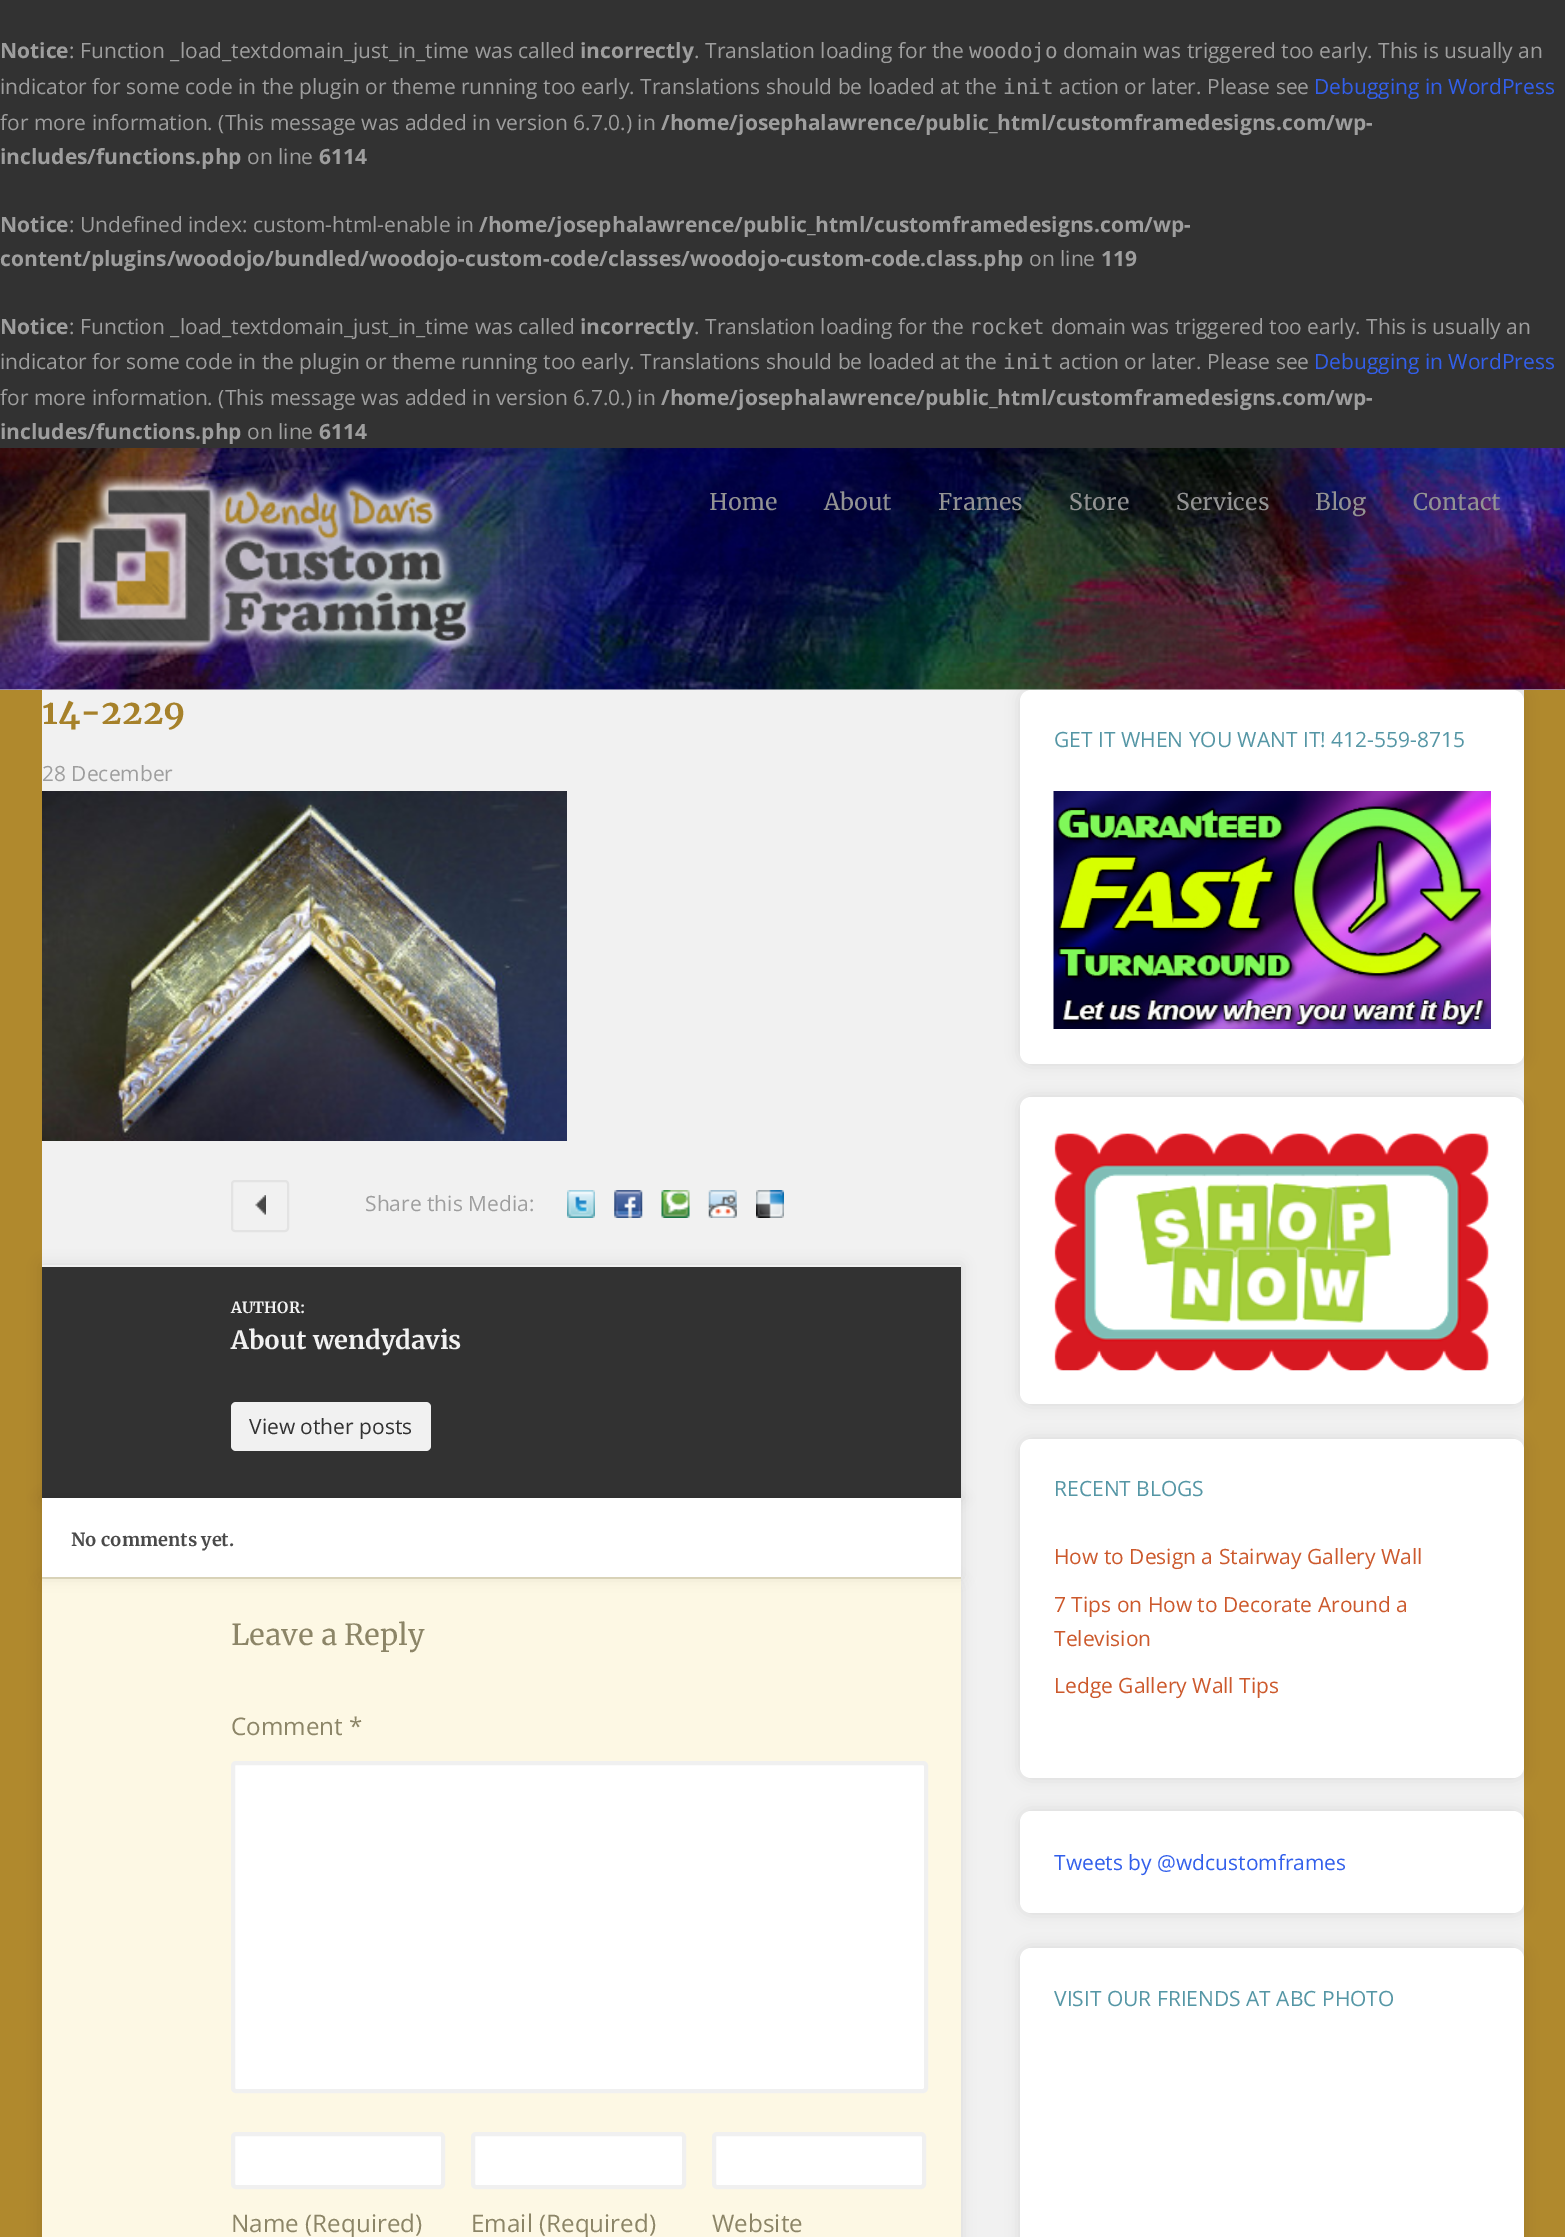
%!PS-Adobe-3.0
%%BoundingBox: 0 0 1565 2237
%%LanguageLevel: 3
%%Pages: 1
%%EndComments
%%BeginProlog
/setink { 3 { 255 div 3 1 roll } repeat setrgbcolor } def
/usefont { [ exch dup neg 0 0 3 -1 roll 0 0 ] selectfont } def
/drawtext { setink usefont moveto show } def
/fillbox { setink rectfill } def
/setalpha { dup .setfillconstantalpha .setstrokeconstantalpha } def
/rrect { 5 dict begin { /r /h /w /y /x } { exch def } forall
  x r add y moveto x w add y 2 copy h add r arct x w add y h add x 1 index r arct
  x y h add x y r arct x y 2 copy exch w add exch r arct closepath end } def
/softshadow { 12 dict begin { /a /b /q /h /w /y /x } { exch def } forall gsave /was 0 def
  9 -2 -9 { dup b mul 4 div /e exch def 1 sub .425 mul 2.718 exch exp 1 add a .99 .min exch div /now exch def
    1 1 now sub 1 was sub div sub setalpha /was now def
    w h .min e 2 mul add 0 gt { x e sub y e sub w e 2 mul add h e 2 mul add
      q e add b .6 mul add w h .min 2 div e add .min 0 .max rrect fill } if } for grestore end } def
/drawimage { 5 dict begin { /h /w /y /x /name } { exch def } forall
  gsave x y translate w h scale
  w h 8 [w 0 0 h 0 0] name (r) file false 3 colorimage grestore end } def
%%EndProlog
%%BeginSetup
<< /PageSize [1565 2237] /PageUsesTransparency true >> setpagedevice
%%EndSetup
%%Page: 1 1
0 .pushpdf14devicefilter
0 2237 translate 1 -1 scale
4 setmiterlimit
0 0 1565 2237 50 50 50 fillbox
(Notice) 0 58 /OpenSans-Bold 21 158 158 158 drawtext
(: Function _load_textdomain_just_in_time was called) 69 58 /OpenSans-Regular 21 158 158 158 drawtext
(incorrectly) 580 58 /OpenSans-Bold 21 158 158 158 drawtext
(. Translation loading for the) 694 58 /OpenSans-Regular 21 158 158 158 drawtext
(woodojo) 969 58 /DejaVuSansMono-Regular 21 158 158 158 drawtext
(domain was triggered too early. This is usually an) 1063 58 /OpenSans-Regular 21 158 158 158 drawtext
(indicator for some code in the plugin or theme running too early. Translations should be loaded at the) 0 94 /OpenSans-Regular 21 158 158 158 drawtext
(init) 1003 94 /DejaVuSansMono-Regular 21 158 158 158 drawtext
(action or later. Please see) 1059 94 /OpenSans-Regular 21 158 158 158 drawtext
(Debugging in WordPress) 1314 94 /OpenSans-Regular 21 50 95 235 drawtext
(for more information. \(This message was added in version 6.7.0.\) in) 0 130 /OpenSans-Regular 21 158 158 158 drawtext
(/home/josephalawrence/public_html/customframedesigns.com/wp-) 661 130 /OpenSans-Bold 21 158 158 158 drawtext
(includes/functions.php) 0 164 /OpenSans-Bold 21 158 158 158 drawtext
(on line) 247 164 /OpenSans-Regular 21 158 158 158 drawtext
(6114) 319 164 /OpenSans-Bold 21 158 158 158 drawtext
(Notice) 0 232 /OpenSans-Bold 21 158 158 158 drawtext
(: Undefined index: custom-html-enable in) 69 232 /OpenSans-Regular 21 158 158 158 drawtext
(/home/josephalawrence/public_html/customframedesigns.com/wp-) 479 232 /OpenSans-Bold 21 158 158 158 drawtext
(content/plugins/woodojo/bundled/woodojo-custom-code/classes/woodojo-custom-code.class.php) 0 266 /OpenSans-Bold 21 158 158 158 drawtext
(on line) 1029 266 /OpenSans-Regular 21 158 158 158 drawtext
(119) 1101 266 /OpenSans-Bold 21 158 158 158 drawtext
(Notice) 0 334 /OpenSans-Bold 21 158 158 158 drawtext
(: Function _load_textdomain_just_in_time was called) 69 334 /OpenSans-Regular 21 158 158 158 drawtext
(incorrectly) 580 334 /OpenSans-Bold 21 158 158 158 drawtext
(. Translation loading for the) 694 334 /OpenSans-Regular 21 158 158 158 drawtext
(rocket) 969 334 /DejaVuSansMono-Regular 21 158 158 158 drawtext
(domain was triggered too early. This is usually an) 1051 334 /OpenSans-Regular 21 158 158 158 drawtext
(indicator for some code in the plugin or theme running too early. Translations should be loaded at the) 0 369 /OpenSans-Regular 21 158 158 158 drawtext
(init) 1003 369 /DejaVuSansMono-Regular 21 158 158 158 drawtext
(action or later. Please see) 1059 369 /OpenSans-Regular 21 158 158 158 drawtext
(Debugging in WordPress) 1314 369 /OpenSans-Regular 21 50 95 235 drawtext
(for more information. \(This message was added in version 6.7.0.\) in) 0 405 /OpenSans-Regular 21 158 158 158 drawtext
(/home/josephalawrence/public_html/customframedesigns.com/wp-) 661 405 /OpenSans-Bold 21 158 158 158 drawtext
(includes/functions.php) 0 439 /OpenSans-Bold 21 158 158 158 drawtext
(on line) 247 439 /OpenSans-Regular 21 158 158 158 drawtext
(6114) 319 439 /OpenSans-Bold 21 158 158 158 drawtext
0 690 1565 1547 176 137 45 fillbox
42 690 1482 1547 241 241 241 fillbox
0 0 0 setink
1020 690 504 374 11 7 0.1 softshadow
0 689 1565 1 241 241 241 fillbox
(assets/img1.rgb) 0 448 1565 242 drawimage
(assets/img2.rgb) 42 476 437 179 drawimage
(Home) 709 510 /Merriweather-Regular 23 147 147 147 drawtext
(About) 824 510 /Merriweather-Regular 23 147 147 147 drawtext
(Frames) 938 510 /Merriweather-Regular 23 147 147 147 drawtext
(Store) 1069 510 /Merriweather-Regular 23 147 147 147 drawtext
(Services) 1176 510 /Merriweather-Regular 23 147 147 147 drawtext
(Blog) 1315 510 /Merriweather-Regular 23 147 147 147 drawtext
(Contact) 1413 510 /Merriweather-Regular 23 147 147 147 drawtext
(14-2229) 42 724 /Merriweather-Bold 34 166 129 42 drawtext
(28 December) 42 781 /OpenSans-Regular 21 158 158 158 drawtext
(assets/img3.rgb) 42 791 525 350 drawimage
(assets/img4.rgb) 255 1195 11 20 drawimage
227 227 227 setink
2 setlinewidth
232 1181 56 50 3 rrect stroke
(Share this Media:) 365 1211 /OpenSans-Regular 21 158 158 158 drawtext
(assets/img5.rgb) 567 1190 28 28 drawimage
(assets/img6.rgb) 614 1190 29 28 drawimage
(assets/img7.rgb) 661 1190 29 28 drawimage
(assets/img8.rgb) 708 1190 29 28 drawimage
(assets/img9.rgb) 756 1190 28 28 drawimage
0 0 0 setink
42 1265 919 233 0 7 0.1 softshadow
42 1267 919 231 50 50 50 fillbox
42 1265 919 2 240 240 240 fillbox
(AUTHOR:) 231 1313 /Merriweather-Bold 15.5 241 241 241 drawtext
(About wendydavis) 231 1349 /Merriweather-Bold 25.25 241 241 241 drawtext
231 1402 200 49 5 rrect fill
(View other posts) 249 1434 /OpenSans-Regular 21 50 50 50 drawtext
0 0 0 setink
42 1577 919 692 11 7 0.1 softshadow
253 248 228 setink
42 1578 moveto 961 1578 lineto 961 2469 lineto 961 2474 956 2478 950 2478 curveto 52 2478 lineto 47 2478 42 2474 42 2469 curveto closepath fill
42 1577 919 2 228 221 193 fillbox
0 0 0 setink
42 1498 919 79 0 7 0.1 softshadow
42 1498 919 79 255 255 255 fillbox
(No comments yet.) 71 1546 /Merriweather-Bold 18 74 74 74 drawtext
(Leave a Reply) 231 1645 /Merriweather-Regular 29 140 133 103 drawtext
(Comment *) 231 1735 /OpenSans-Regular 24.25 140 133 103 drawtext
255 255 255 setink
233 1763 693 328 3 rrect gsave fill grestore
240 240 240 setink
4 setlinewidth
stroke
255 255 255 setink
233 2134 210 53 3 rrect gsave fill grestore
240 240 240 setink
stroke
(Name \(Required\)) 231 2232 /OpenSans-Regular 24.25 140 133 103 drawtext
475 2136 207 49 255 255 255 fillbox
240 240 240 setink
473 2134 211 53 3 rrect stroke
(Email \(Required\)) 471 2232 /OpenSans-Regular 24.25 140 133 103 drawtext
255 255 255 setink
714 2134 210 53 3 rrect gsave fill grestore
240 240 240 setink
stroke
(Website) 712 2232 /OpenSans-Regular 24.25 140 133 103 drawtext
255 255 255 setink
1020 690 504 374 11 rrect fill
(GET IT WHEN YOU WANT IT! 412-559-8715) 1054 747 /OpenSans-Regular 21 85 150 165 drawtext
(assets/img10.rgb) 1053 791 438 238 drawimage
0 0 0 setink
1020 1097 504 307 11 7 0.1 softshadow
255 255 255 setink
1020 1097 504 307 11 rrect fill
(assets/img11.rgb) 1054 1133 435 238 drawimage
0 0 0 setink
1020 1439 504 339 11 7 0.1 softshadow
255 255 255 setink
1020 1439 504 339 11 rrect fill
(RECENT BLOGS) 1054 1496 /OpenSans-Regular 21 85 150 165 drawtext
(How to Design a Stairway Gallery Wall) 1054 1564 /OpenSans-Regular 21 204 89 44 drawtext
(7 Tips on How to Decorate Around a) 1054 1612 /OpenSans-Regular 21 204 89 44 drawtext
(Television) 1054 1646 /OpenSans-Regular 21 204 89 44 drawtext
(Ledge Gallery Wall Tips) 1054 1693 /OpenSans-Regular 21 204 89 44 drawtext
0 0 0 setink
1020 1811 504 102 11 7 0.1 softshadow
255 255 255 setink
1020 1811 504 102 11 rrect fill
(Tweets by @wdcustomframes) 1054 1870 /OpenSans-Regular 21 50 95 235 drawtext
0 0 0 setink
1020 1948 504 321 11 7 0.1 softshadow
255 255 255 setink
1020 1948 504 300 11 rrect fill
(VISIT OUR FRIENDS AT ABC PHOTO) 1054 2006 /OpenSans-Regular 21 85 150 165 drawtext
.poppdf14devicefilter showpage
%%EOF
